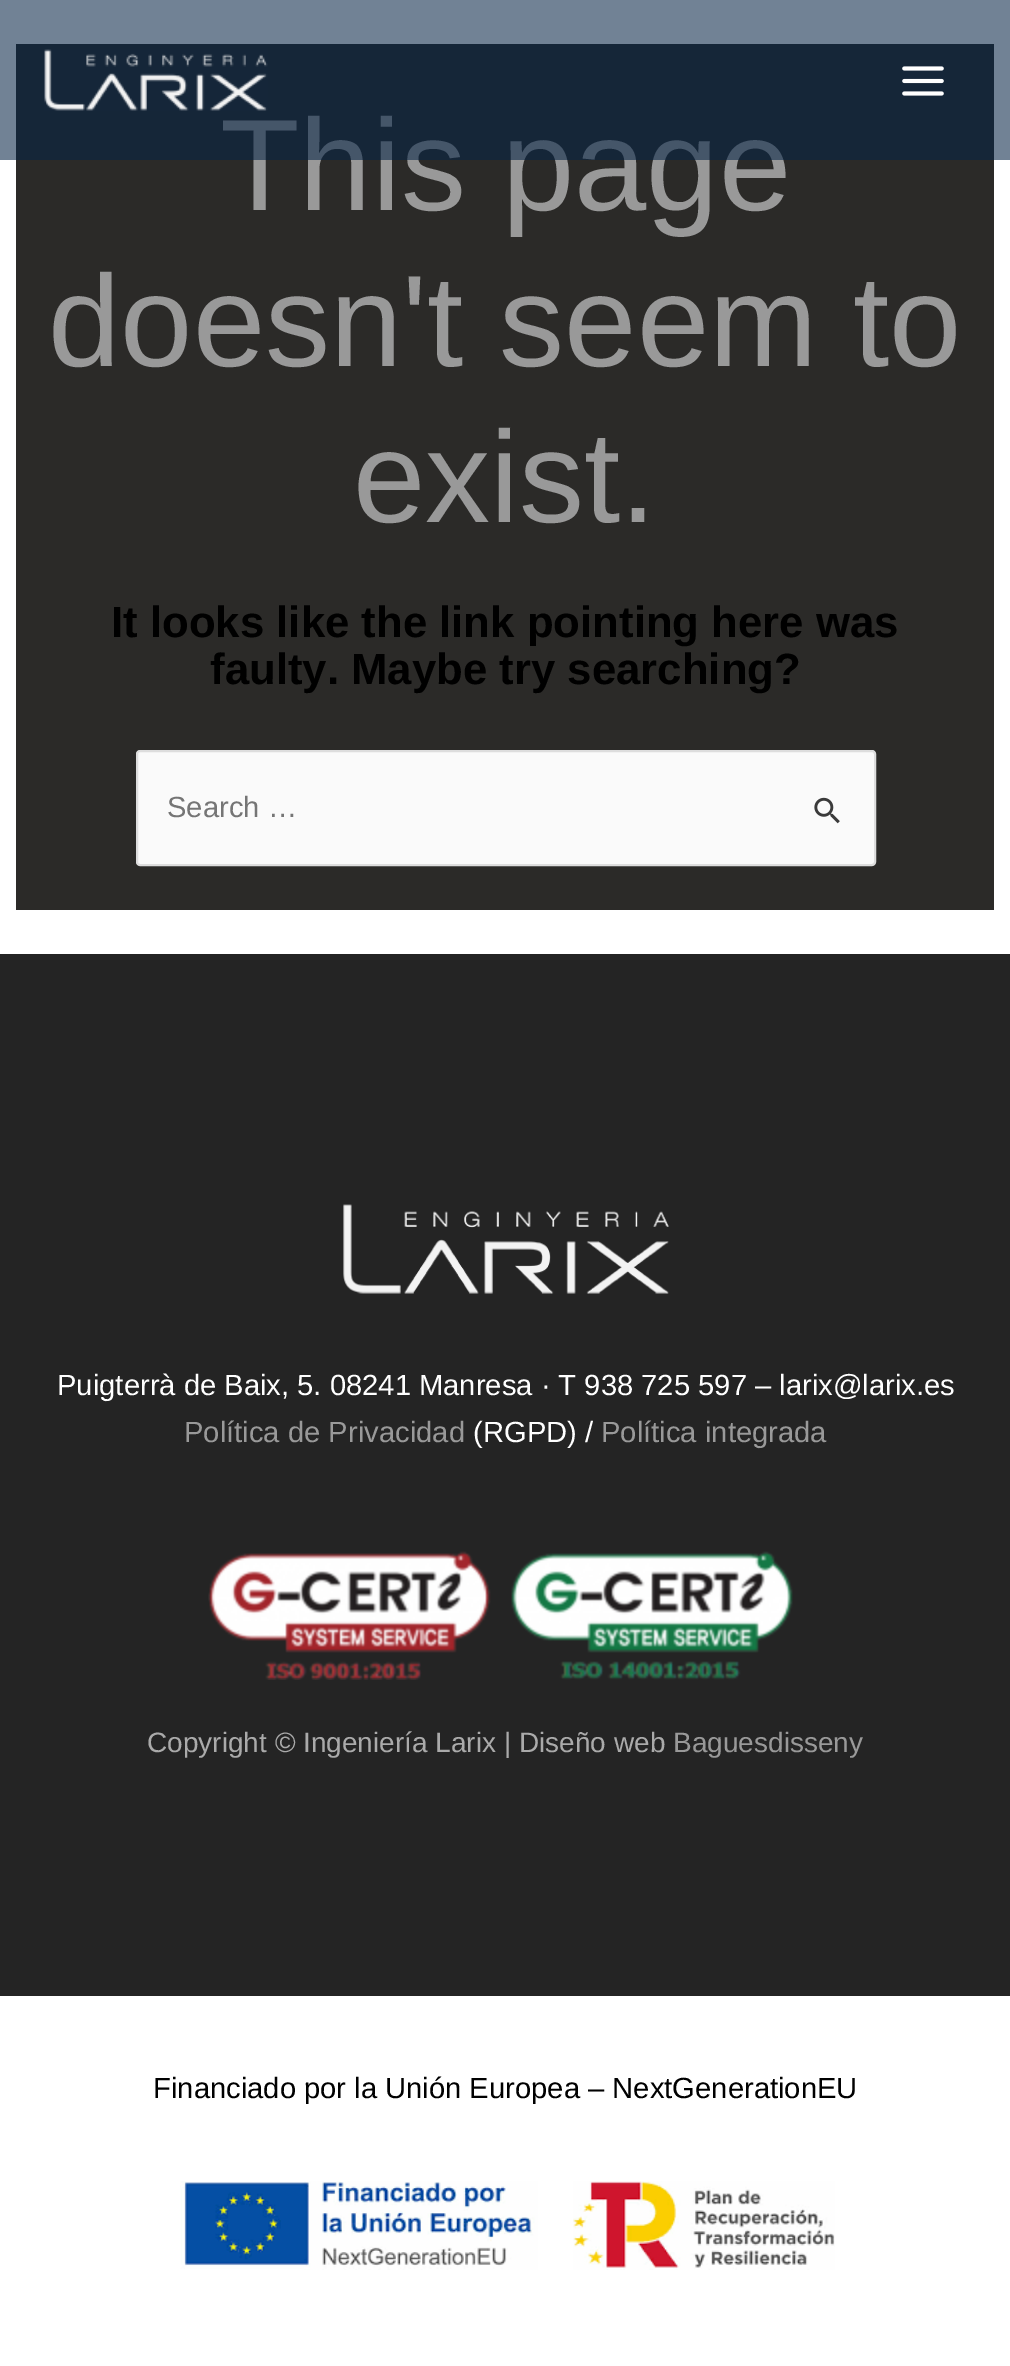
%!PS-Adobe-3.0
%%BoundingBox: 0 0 1010 2366
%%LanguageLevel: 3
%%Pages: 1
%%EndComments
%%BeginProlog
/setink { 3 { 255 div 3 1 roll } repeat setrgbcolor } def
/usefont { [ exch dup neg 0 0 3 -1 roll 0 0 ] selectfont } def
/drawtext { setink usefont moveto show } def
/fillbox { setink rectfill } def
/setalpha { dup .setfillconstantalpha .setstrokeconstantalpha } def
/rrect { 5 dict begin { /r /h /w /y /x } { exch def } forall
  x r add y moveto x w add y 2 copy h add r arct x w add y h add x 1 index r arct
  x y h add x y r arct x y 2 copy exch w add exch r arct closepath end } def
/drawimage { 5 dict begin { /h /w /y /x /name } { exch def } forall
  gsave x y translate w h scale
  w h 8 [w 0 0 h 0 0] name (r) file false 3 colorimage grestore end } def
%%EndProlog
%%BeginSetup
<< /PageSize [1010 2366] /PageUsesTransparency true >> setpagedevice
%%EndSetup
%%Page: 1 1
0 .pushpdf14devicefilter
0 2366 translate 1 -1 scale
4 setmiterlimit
0 0 1010 2366 255 255 255 fillbox
16 44 978 866 43 42 40 fillbox
(This page) 220 210 /LiberationSans-Regular 130 153 153 153 drawtext
0.57 setalpha
0 0 1010 160 5 35 69 fillbox
1 setalpha
(assets/img1.rgb) 44 49 224 62 drawimage
(assets/img2.rgb) 902 66 42 30 drawimage
(doesn't seem to) 48 366 /LiberationSans-Regular 130 153 153 153 drawtext
(exist.) 353 522 /LiberationSans-Regular 130 153 153 153 drawtext
(It looks like the link pointing here was) 111 637 /LiberationSans-Bold 43.75 0 0 0 drawtext
(faulty. Maybe try searching?) 210 684 /LiberationSans-Bold 43.75 0 0 0 drawtext
250 250 250 setink
137 751 738 114 3 rrect gsave fill grestore
221 221 221 setink
2 setlinewidth
stroke
(Search …) 167 817 /LiberationSans-Regular 29.2 117 117 117 drawtext
(assets/img3.rgb) 814 797 26 27 drawimage
0 954 1010 1042 36 36 36 fillbox
(assets/img4.rgb) 343 1204 326 90 drawimage
(Puigterrà de Baix, 5. 08241 Manresa · T 938 725 597 – larix@larix.es) 57 1395 /LiberationSans-Regular 29.2 255 255 255 drawtext
(Política de Privacidad) 184 1442 /LiberationSans-Regular 29.2 153 153 153 drawtext
(\(RGPD\) /) 473 1442 /LiberationSans-Regular 29.2 255 255 255 drawtext
(Política integrada) 601 1442 /LiberationSans-Regular 29.2 153 153 153 drawtext
(assets/img5.rgb) 208 1551 585 129 drawimage
(Copyright © Ingeniería Larix | Diseño web) 147 1752 /LiberationSans-Regular 28 170 170 170 drawtext
(Baguesdisseny) 673 1752 /LiberationSans-Regular 28 153 153 153 drawtext
(Financiado por la Unión Europea – NextGenerationEU) 153 2098 /LiberationSans-Regular 29.2 0 0 0 drawtext
(assets/img6.rgb) 180 2181 655 89 drawimage
.poppdf14devicefilter showpage
%%EOF
